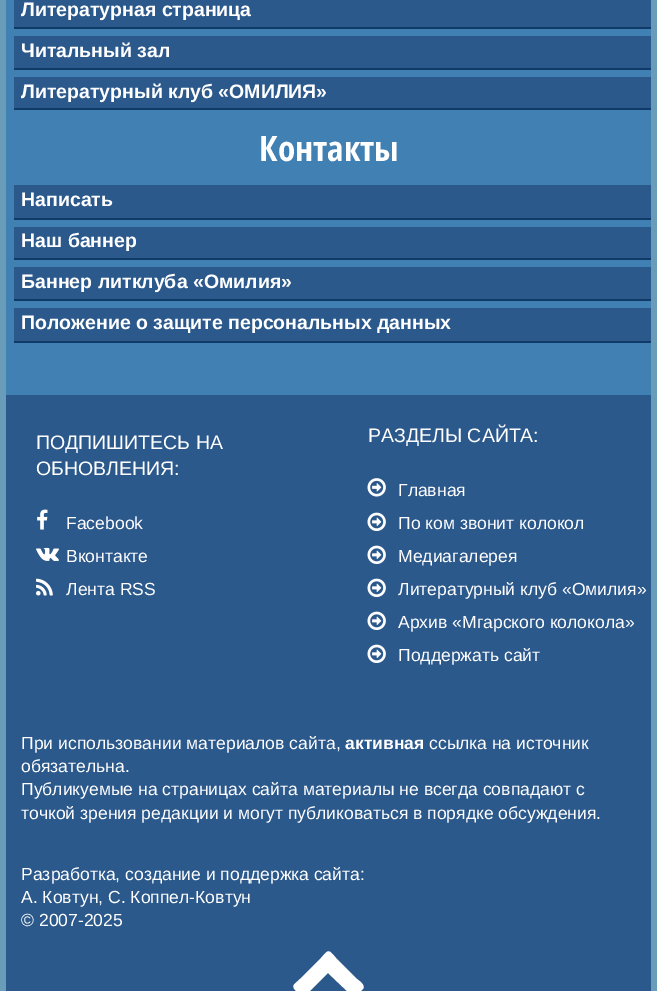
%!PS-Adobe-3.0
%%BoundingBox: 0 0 657 991
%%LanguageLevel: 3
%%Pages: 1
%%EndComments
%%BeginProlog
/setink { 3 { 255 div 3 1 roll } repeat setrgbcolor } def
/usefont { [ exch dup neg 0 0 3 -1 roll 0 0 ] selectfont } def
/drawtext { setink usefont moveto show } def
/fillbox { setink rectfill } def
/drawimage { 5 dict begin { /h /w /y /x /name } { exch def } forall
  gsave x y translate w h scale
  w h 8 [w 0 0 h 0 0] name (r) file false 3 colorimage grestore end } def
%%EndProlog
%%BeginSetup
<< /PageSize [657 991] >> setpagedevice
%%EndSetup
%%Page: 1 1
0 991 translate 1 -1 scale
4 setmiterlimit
0 0 657 991 105 156 185 fillbox
6 0 645 395 64 128 178 fillbox
14 0 637 27 43 89 139 fillbox
14 27 637 2 16 58 103 fillbox
(Литературная страница) 21 16 /LiberationSans-Bold 19.5 255 255 255 drawtext
14 36 637 32 43 89 139 fillbox
14 68 637 2 16 58 103 fillbox
(Читальный зал) 21 57 /LiberationSans-Bold 19.5 255 255 255 drawtext
14 77 637 31 43 89 139 fillbox
14 108 637 2 16 58 103 fillbox
(Литературный клуб «ОМИЛИЯ») 21 98 /LiberationSans-Bold 19.5 255 255 255 drawtext
(Контакты) 259 161 /OpenSansCondensed-Bold 35 255 255 255 drawtext
14 185 637 33 43 89 139 fillbox
14 218 637 2 16 58 103 fillbox
(Написать) 21 206 /LiberationSans-Bold 19.5 255 255 255 drawtext
14 227 637 31 43 89 139 fillbox
14 258 637 2 16 58 103 fillbox
(Наш баннер) 21 247 /LiberationSans-Bold 19.5 255 255 255 drawtext
14 267 637 32 43 89 139 fillbox
14 299 637 2 16 58 103 fillbox
(Баннер литклуба «Омилия») 21 288 /LiberationSans-Bold 19.5 255 255 255 drawtext
14 308 637 33 43 89 139 fillbox
14 341 637 2 16 58 103 fillbox
(Положение о защите персональных данных) 21 329 /LiberationSans-Bold 19.5 255 255 255 drawtext
6 395 645 596 43 89 139 fillbox
(ПОДПИШИТЕСЬ НА) 36 449 /LiberationSans-Regular 19.5 255 255 255 drawtext
(ОБНОВЛЕНИЯ:) 36 475 /LiberationSans-Regular 19.5 255 255 255 drawtext
(assets/img1.rgb) 37 509 11 21 drawimage
(Facebook) 66 529 /LiberationSans-Regular 17.55 255 255 255 drawtext
(assets/img2.rgb) 36 547 23 14 drawimage
(Вконтакте) 66 562 /LiberationSans-Regular 17.55 255 255 255 drawtext
(assets/img3.rgb) 36 578 17 18 drawimage
(Лента RSS) 66 595 /LiberationSans-Regular 17.55 255 255 255 drawtext
(РАЗДЕЛЫ САЙТА:) 368 442 /LiberationSans-Regular 19.5 255 255 255 drawtext
(assets/img4.rgb) 367 478 19 19 drawimage
(Главная) 398 496 /LiberationSans-Regular 17.55 255 255 255 drawtext
(assets/img5.rgb) 367 512 19 19 drawimage
(По ком звонит колокол) 398 529 /LiberationSans-Regular 17.55 255 255 255 drawtext
(assets/img5.rgb) 367 545 19 19 drawimage
(Медиагалерея) 398 562 /LiberationSans-Regular 17.55 255 255 255 drawtext
(assets/img5.rgb) 367 578 19 19 drawimage
(Литературный клуб «Омилия») 398 595 /LiberationSans-Regular 17.55 255 255 255 drawtext
(assets/img5.rgb) 367 611 19 19 drawimage
(Архив «Мгарского колокола») 398 628 /LiberationSans-Regular 17.55 255 255 255 drawtext
(assets/img5.rgb) 367 644 19 19 drawimage
(Поддержать сайт) 398 661 /LiberationSans-Regular 17.55 255 255 255 drawtext
(При использовании материалов сайта,) 21 749 /LiberationSans-Regular 17.55 255 255 255 drawtext
(активная) 345 749 /LiberationSans-Bold 17.55 255 255 255 drawtext
(ссылка на источник) 429 749 /LiberationSans-Regular 17.55 255 255 255 drawtext
(обязательна.) 21 772 /LiberationSans-Regular 17.55 255 255 255 drawtext
(Публикуемые на страницах сайта материалы не всегда совпадают с) 21 795 /LiberationSans-Regular 17.55 255 255 255 drawtext
(точкой зрения редакции и могут публиковаться в порядке обсуждения.) 21 819 /LiberationSans-Regular 17.55 255 255 255 drawtext
(Разработка, создание и поддержка сайта:) 21 880 /LiberationSans-Regular 17.55 255 255 255 drawtext
(А. Ковтун, С. Коппел-Ковтун) 21 903 /LiberationSans-Regular 17.55 255 255 255 drawtext
(© 2007-2025) 21 926 /LiberationSans-Regular 17.55 255 255 255 drawtext
363 989 moveto 357 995 lineto 353 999 352 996 348 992 curveto 328 973 lineto 309 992 lineto 302 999 303 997 295 990 curveto 291 985 295 984 300 979 curveto 321 958 lineto 329 949 328 949 336 958 curveto 357 979 lineto 358 980 366 985 363 989 curveto closepath fill
showpage
%%EOF
